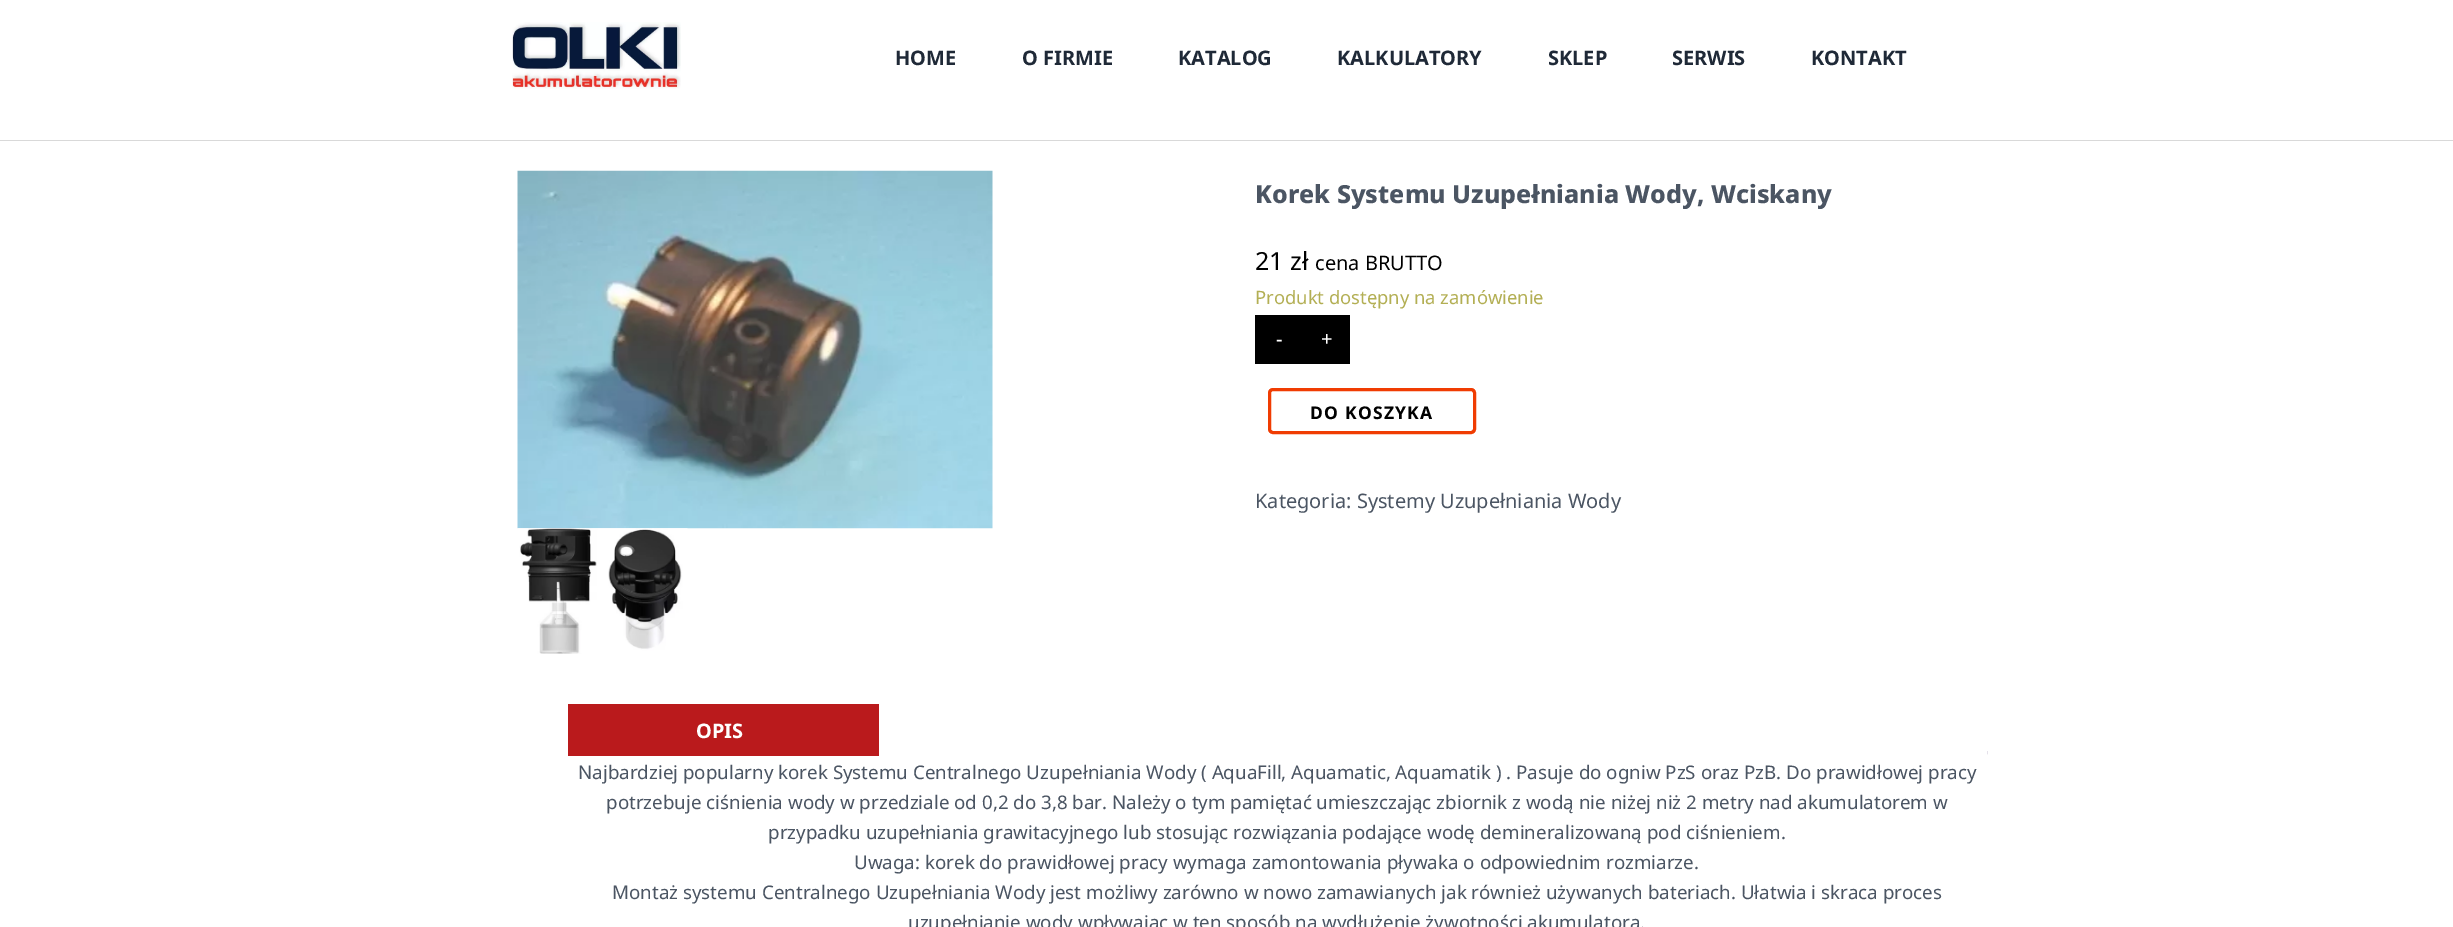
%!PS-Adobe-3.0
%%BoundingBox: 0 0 2453 927
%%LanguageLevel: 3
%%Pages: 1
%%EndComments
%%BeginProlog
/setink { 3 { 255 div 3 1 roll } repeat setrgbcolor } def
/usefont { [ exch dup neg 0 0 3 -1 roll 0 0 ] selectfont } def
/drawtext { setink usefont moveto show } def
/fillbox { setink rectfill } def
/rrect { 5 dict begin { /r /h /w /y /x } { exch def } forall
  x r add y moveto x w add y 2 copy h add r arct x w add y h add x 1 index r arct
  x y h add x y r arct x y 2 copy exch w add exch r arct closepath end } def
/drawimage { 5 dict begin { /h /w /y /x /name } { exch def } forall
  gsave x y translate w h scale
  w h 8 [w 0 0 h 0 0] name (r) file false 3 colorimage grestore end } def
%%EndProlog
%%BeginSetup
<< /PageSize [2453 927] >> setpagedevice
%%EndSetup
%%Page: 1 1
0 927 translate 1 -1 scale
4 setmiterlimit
0 0 2453 927 255 255 255 fillbox
(assets/img1.rgb) 512 22 169 67 drawimage
(HOME) 895 65 /NotoSans-Bold 20 31 41 55 drawtext
(O FIRMIE) 1022 65 /NotoSans-Bold 20 31 41 55 drawtext
(KATALOG) 1178 65 /NotoSans-Bold 20 31 41 55 drawtext
(KALKULATORY) 1337 65 /NotoSans-Bold 20 31 41 55 drawtext
(SKLEP) 1548 65 /NotoSans-Bold 20 31 41 55 drawtext
(SERWIS) 1672 65 /NotoSans-Bold 20 31 41 55 drawtext
(KONTAKT) 1811 65 /NotoSans-Bold 20 31 41 55 drawtext
0 140 2453 1 217 217 217 fillbox
(assets/img2.rgb) 517 170 476 359 drawimage
(assets/img3.rgb) 517 528 171 126 drawimage
(Korek Systemu Uzupełniania Wody, Wciskany) 1255 203 /NotoSans-ExtraBold 25 75 85 99 drawtext
(21 zł) 1255 270 /NotoSans-Regular 25 0 0 0 drawtext
(cena BRUTTO) 1315 270 /NotoSans-Regular 20 0 0 0 drawtext
(Produkt dostępny na zamówienie) 1255 304 /NotoSans-Regular 18.4 179 175 84 drawtext
1255 315 95 49 0 0 0 fillbox
(-) 1276 346 /NotoSans-Regular 20 255 255 255 drawtext
(+) 1321 346 /NotoSans-Regular 20 255 255 255 drawtext
240 60 2 setink
3 setlinewidth
1269.5 389.5 205 43 3.5 rrect stroke
/NotoSans-Bold 17.5 usefont
0 0 0 setink
1310 419 moveto 1.25 0 (DO KOSZYKA) ashow
(Kategoria: Systemy Uzupełniania Wody) 1255 508 /NotoSans-Regular 20 75 85 99 drawtext
568 704 311 52 186 26 28 fillbox
(OPIS) 696 738 /NotoSans-Bold 20 255 255 255 drawtext
gsave
568 704 1420 52 rectclip
207 200 216 setink
1987.5 751 moveto 1994 751 lineto 1994 757.5 lineto 1990.5 757.5 1987.5 756 1987.5 752.5 curveto closepath 1989 751 moveto 1994 751 lineto 1994 756 lineto 1991.5 756 1989 755.5 1989 752.5 curveto closepath eofill
grestore
(Najbardziej popularny korek Systemu Centralnego Uzupełniania Wody \( AquaFill, Aquamatic, Aquamatik \) . Pasuje do ogniw PzS oraz PzB. Do prawidłowej pracy) 578 779 /NotoSans-Regular 18.75 75 85 99 drawtext
(potrzebuje ciśnienia wody w przedziale od 0,2 do 3,8 bar. Należy o tym pamiętać umieszczając zbiornik z wodą nie niżej niż 2 metry nad akumulatorem w) 606 809 /NotoSans-Regular 18.75 75 85 99 drawtext
(przypadku uzupełniania grawitacyjnego lub stosując rozwiązania podające wodę demineralizowaną pod ciśnieniem.) 768 839 /NotoSans-Regular 18.75 75 85 99 drawtext
(Uwaga: korek do prawidłowej pracy wymaga zamontowania pływaka o odpowiednim rozmiarze.) 854 869 /NotoSans-Regular 18.75 75 85 99 drawtext
(Montaż systemu Centralnego Uzupełniania Wody jest możliwy zarówno w nowo zamawianych jak również używanych bateriach. Ułatwia i skraca proces) 612 899 /NotoSans-Regular 18.75 75 85 99 drawtext
(uzupełnianie wody wpływając w ten sposób na wydłużenie żywotności akumulatora.) 908 929 /NotoSans-Regular 18.75 75 85 99 drawtext
showpage
%%EOF
